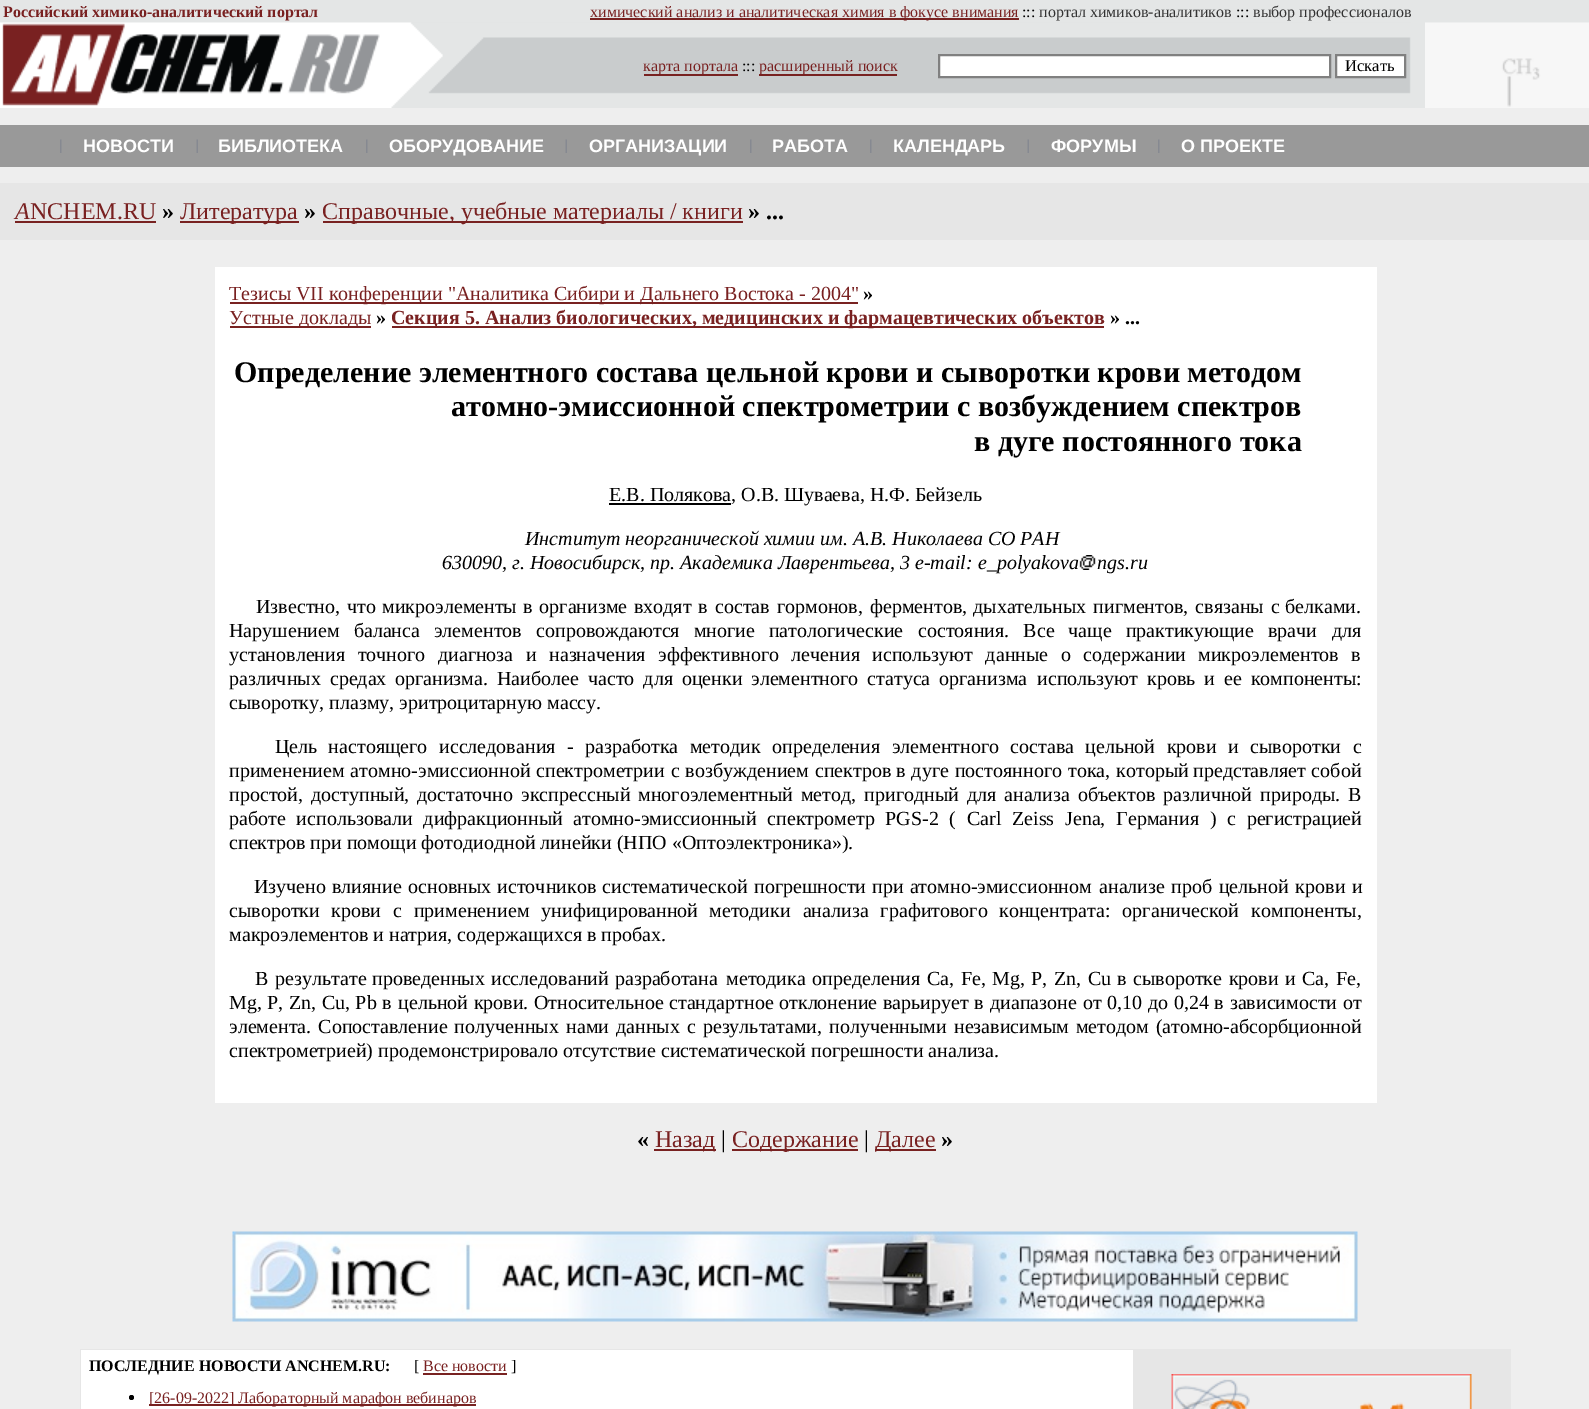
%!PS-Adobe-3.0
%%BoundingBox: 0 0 1589 1409
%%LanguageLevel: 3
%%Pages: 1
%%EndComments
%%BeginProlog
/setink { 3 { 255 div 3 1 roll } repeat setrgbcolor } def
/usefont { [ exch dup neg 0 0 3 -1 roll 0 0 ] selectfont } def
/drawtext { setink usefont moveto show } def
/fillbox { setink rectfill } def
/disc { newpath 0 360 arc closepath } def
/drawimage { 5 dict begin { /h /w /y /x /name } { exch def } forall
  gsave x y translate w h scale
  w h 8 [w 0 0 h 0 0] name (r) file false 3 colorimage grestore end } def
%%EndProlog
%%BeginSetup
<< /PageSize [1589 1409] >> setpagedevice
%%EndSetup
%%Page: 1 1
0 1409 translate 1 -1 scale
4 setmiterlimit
0 0 1589 1409 238 238 238 fillbox
0 0 1589 23 228 230 230 fillbox
(Российский химико-аналитический портал) 3 17 /LiberationSerif-Bold 16 121 33 33 drawtext
590 18 429 2 120 34 33 fillbox
(химический анализ и аналитическая химия в фокусе внимания) 590 17 /LiberationSerif-Regular 16 121 33 33 drawtext
(:::) 1022 17 /LiberationSerif-Regular 16 0 0 0 drawtext
(портал химиков-аналитиков) 1039 17 /LiberationSerif-Regular 16 51 51 51 drawtext
(:::) 1236 17 /LiberationSerif-Regular 16 0 0 0 drawtext
(выбор профессионалов) 1253 17 /LiberationSerif-Regular 16 51 51 51 drawtext
1411 23 14 85 228 230 230 fillbox
(assets/img1.rgb) 0 22 390 86 drawimage
(assets/img2.rgb) 390 22 1021 86 drawimage
644 74 94 2 120 34 33 fillbox
(карта портала) 643 71 /LiberationSerif-Regular 16 121 33 33 drawtext
(:::) 742 71 /LiberationSerif-Regular 16 0 0 0 drawtext
759 74 138 2 120 34 33 fillbox
(расширенный поиск) 759 71 /LiberationSerif-Regular 16 121 33 33 drawtext
255 255 255 setink
939 55 moveto 1330 55 lineto 1330 77 lineto 939 77 lineto closepath gsave fill grestore
128 128 128 setink
2 setlinewidth
stroke
255 255 255 setink
1336 55 moveto 1405 55 lineto 1405 77 lineto 1336 77 lineto closepath gsave fill grestore
128 128 128 setink
stroke
(Искать) 1345 71 /LiberationSerif-Regular 16.5 0 0 0 drawtext
(assets/img3.rgb) 1425 22 164 86 drawimage
0 125 1589 42 153 153 153 fillbox
(assets/img4.rgb) 60 139 2 14 drawimage
(НОВОСТИ) 83 152 /LiberationSans-Bold 18 255 255 255 drawtext
(assets/img5.rgb) 196 139 2 14 drawimage
(БИБЛИОТЕКА) 218 152 /LiberationSans-Bold 18 255 255 255 drawtext
(assets/img4.rgb) 366 139 2 14 drawimage
(ОБОРУДОВАНИЕ) 389 152 /LiberationSans-Bold 18 255 255 255 drawtext
(assets/img5.rgb) 565 139 2 14 drawimage
(ОРГАНИЗАЦИИ) 589 152 /LiberationSans-Bold 18 255 255 255 drawtext
(assets/img4.rgb) 750 139 2 14 drawimage
(РАБОТА) 772 152 /LiberationSans-Bold 18 255 255 255 drawtext
(assets/img4.rgb) 870 139 2 14 drawimage
(КАЛЕНДАРЬ) 893 152 /LiberationSans-Bold 18 255 255 255 drawtext
(assets/img5.rgb) 1027 139 2 14 drawimage
(ФОРУМЫ) 1051 152 /LiberationSans-Bold 18 255 255 255 drawtext
(assets/img4.rgb) 1158 139 2 14 drawimage
(О ПРОЕКТЕ) 1181 152 /LiberationSans-Bold 18 255 255 255 drawtext
0 183 1589 57 230 230 230 fillbox
(A) 15 219 /LiberationSerif-Italic 24 121 33 33 drawtext
(NCHEM.RU) 30 219 /LiberationSerif-Regular 24 121 33 33 drawtext
15 221 141 2 120 34 33 fillbox
(») 162 219 /LiberationSerif-Bold 24 0 0 0 drawtext
180 221 119 2 120 34 33 fillbox
(Литература) 180 219 /LiberationSerif-Regular 24 121 33 33 drawtext
(») 304 219 /LiberationSerif-Bold 24 0 0 0 drawtext
323 221 420 2 120 34 33 fillbox
(Справочные, учебные материалы / книги) 322 219 /LiberationSerif-Regular 24 121 33 33 drawtext
(» ...) 748 219 /LiberationSerif-Bold 24 0 0 0 drawtext
215 267 1162 836 255 255 255 fillbox
230 302 628 2 120 34 33 fillbox
(Тезисы VII конференции "Аналитика Сибири и Дальнего Востока - 2004") 229 300 /LiberationSerif-Regular 20 121 33 33 drawtext
(») 863 300 /LiberationSerif-Bold 20 0 0 0 drawtext
230 326 141 2 120 34 33 fillbox
(Устные доклады) 229 324 /LiberationSerif-Regular 20 121 33 33 drawtext
(») 376 324 /LiberationSerif-Bold 20 0 0 0 drawtext
392 326 712 2 120 34 33 fillbox
(Секция 5. Анализ биологических, медицинских и фармацевтических объектов) 391 324 /LiberationSerif-Bold 20 121 33 33 drawtext
(» ...) 1110 324 /LiberationSerif-Bold 20 0 0 0 drawtext
(Определение элементного состава цельной крови и сыворотки крови методом) 234 382 /LiberationSerif-Bold 30 0 0 0 drawtext
(атомно-эмиссионной спектрометрии с возбуждением спектров) 451 416 /LiberationSerif-Bold 30 0 0 0 drawtext
(в дуге постоянного тока) 974 451 /LiberationSerif-Bold 30 0 0 0 drawtext
609 503 122 2 0 0 0 fillbox
(Е.В. Полякова, О.В. Шуваева, Н.Ф. Бейзель) 609 501 /LiberationSerif-Regular 20 0 0 0 drawtext
(Институт неорганической химии им. А.В. Николаева СО РАН) 525 545 /LiberationSerif-Italic 20 0 0 0 drawtext
(630090, г. Новосибирск, пр. Академика Лаврентьева, 3 e-mail: e_polyakova) 442 569 /LiberationSerif-Italic 20 0 0 0 drawtext
(assets/img6.rgb) 1078 555 18 15 drawimage
(ngs.ru) 1097 569 /LiberationSerif-Italic 20 0 0 0 drawtext
/LiberationSerif-Regular 20 usefont
256 613 moveto 2 0 32 (Известно, что) widthshow
382 613 moveto 1.5 0 32 (микроэлементы в организме входят в) widthshow
715 613 moveto 2 0 32 (состав гормонов, ферментов,) widthshow
973 613 moveto 2 0 32 (дыхательных пигментов, связаны с) widthshow
(белками.) 1285 613 /LiberationSerif-Regular 20 0 0 0 drawtext
229 637 moveto 9 0 32 (Нарушением баланса элементов) widthshow
536 637 moveto 9 0 32 (сопровождаются многие патологические) widthshow
918 637 moveto 9 0 32 (состояния. Все чаще практикующие врачи) widthshow
(для) 1332 637 /LiberationSerif-Regular 20 0 0 0 drawtext
229 661 moveto 7.5 0 32 (установления точного диагноза и) widthshow
549 661 moveto 7.5 0 32 (назначения эффективного лечения) widthshow
872 661 moveto 7.5 0 32 (используют данные о содержании) widthshow
1198 661 moveto 7.5 0 32 (микроэлементов в) widthshow
229 685 moveto 4 0 32 (различных средах) widthshow
395 685 moveto 4 0 32 (организма. Наиболее часто для оценки) widthshow
751 685 moveto 4 0 32 (элементного статуса организма) widthshow
1037 685 moveto 4 0 32 (используют кровь и ее компоненты:) widthshow
(сыворотку, плазму, эритроцитарную массу.) 229 709 /LiberationSerif-Regular 20 0 0 0 drawtext
275 753 moveto 6 0 32 (Цель настоящего) widthshow
439 753 moveto 6.5 0 32 (исследования - разработка методик) widthshow
772 753 moveto 6.5 0 32 (определения элементного состава) widthshow
1085 753 moveto 6.5 0 32 (цельной крови и сыворотки с) widthshow
229 777 moveto 1 0 32 (применением атомно-эмиссионной) widthshow
536 777 moveto 1 0 32 (спектрометрии с возбуждением спектров) widthshow
896 777 moveto 1 0 32 (в дуге постоянного тока, который) widthshow
1193 777 moveto 1 0 32 (представляет собой) widthshow
229 801 moveto 3 0 32 (простой, доступный,) widthshow
417 801 moveto 3 0 32 (достаточно экспрессный) widthshow
638 801 moveto 3 0 32 (многоэлементный метод, пригодный для) widthshow
1004 801 moveto 3 0 32 (анализа объектов различной природы. В) widthshow
229 825 moveto 5.75 0 32 (работе использовали дифракционный) widthshow
573 825 moveto 5.75 0 32 (атомно-эмиссионный спектрометр PGS-2 \( Carl) widthshow
1012 825 moveto 5.75 0 32 (Zeiss Jena, Германия \) с регистрацией) widthshow
(спектров при помощи фотодиодной линейки \(НПО «Оптоэлектроника»\).) 229 849 /LiberationSerif-Regular 20 0 0 0 drawtext
254 893 moveto 1 0 32 (Изучено влияние) widthshow
408 893 moveto 1 0 32 (основных источников систематической) widthshow
754 893 moveto 1 0 32 (погрешности при атомно-эмиссионном) widthshow
1099 893 moveto 1.5 0 32 (анализе проб цельной крови и) widthshow
(сыворотки) 229 917 /LiberationSerif-Regular 20 0 0 0 drawtext
331 917 moveto 7 0 32 (крови с применением унифицированной) widthshow
709 917 moveto 7 0 32 (методики анализа графитового) widthshow
999 917 moveto 7 0 32 (концентрата: органической компоненты,) widthshow
(макроэлементов и натрия, содержащихся в пробах.) 229 941 /LiberationSerif-Regular 20 0 0 0 drawtext
255 985 moveto 2 0 32 (В результате) widthshow
372 985 moveto 1 0 32 (проведенных исследований разработана) widthshow
726 985 moveto 1.5 0 32 (методика определения Ca, Fe, Mg, P, Zn, Cu в) widthshow
1133 985 moveto 1.5 0 32 (сыворотке крови и Ca, Fe,) widthshow
229 1009 moveto 0.5 0 32 (Mg, P, Zn, Cu, Pb в) widthshow
398 1009 moveto 0.5 0 32 (цельной крови. Относительное) widthshow
669 1009 moveto 0.5 0 32 (стандартное отклонение варьирует в) widthshow
990 1009 moveto 0.75 0 32 (диапазоне от 0,10 до 0,24 в зависимости от) widthshow
229 1033 moveto 2 0 32 (элемента. Сопоставление полученных) widthshow
566 1033 moveto 2 0 32 (нами данных с результатами,) widthshow
829 1033 moveto 2 0 32 (полученными независимым методом \(атомно-абсорбционной) widthshow
(спектрометрией\) продемонстрировало отсутствие систематической погрешности анализа.) 229 1057 /LiberationSerif-Regular 20 0 0 0 drawtext
(«) 637 1147 /LiberationSerif-Bold 24 0 0 0 drawtext
654 1149 62 2 120 34 33 fillbox
(Назад) 655 1147 /LiberationSerif-Regular 24 121 33 33 drawtext
(|) 721 1147 /LiberationSerif-Regular 24 0 0 0 drawtext
732 1149 126 2 120 34 33 fillbox
(Содержание) 732 1147 /LiberationSerif-Regular 24 121 33 33 drawtext
(|) 864 1147 /LiberationSerif-Regular 24 0 0 0 drawtext
875 1149 61 2 120 34 33 fillbox
(Далее) 875 1147 /LiberationSerif-Regular 24 121 33 33 drawtext
(») 941 1147 /LiberationSerif-Bold 24 0 0 0 drawtext
(assets/img7.rgb) 232 1231 1126 91 drawimage
80 1349 1431 60 230 230 230 fillbox
81 1350 1052 59 255 255 255 fillbox
(ПОСЛЕДНИЕ НОВОСТИ ANCHEM.RU:) 89 1371 /LiberationSerif-Bold 16 0 0 0 drawtext
([) 414 1371 /LiberationSerif-Regular 16 0 0 0 drawtext
(Все новости) 423 1371 /LiberationSerif-Regular 16 121 33 33 drawtext
423 1373 84 2 120 34 33 fillbox
(]) 511 1371 /LiberationSerif-Regular 16 0 0 0 drawtext
131.5 1397.5 2.5 disc fill
149 1404 327 2 120 34 33 fillbox
([26-09-2022] Лабораторный марафон вебинаров) 149 1403 /LiberationSerif-Regular 16 121 33 33 drawtext
(assets/img8.rgb) 1171 1374 301 35 drawimage
showpage
%%EOF
